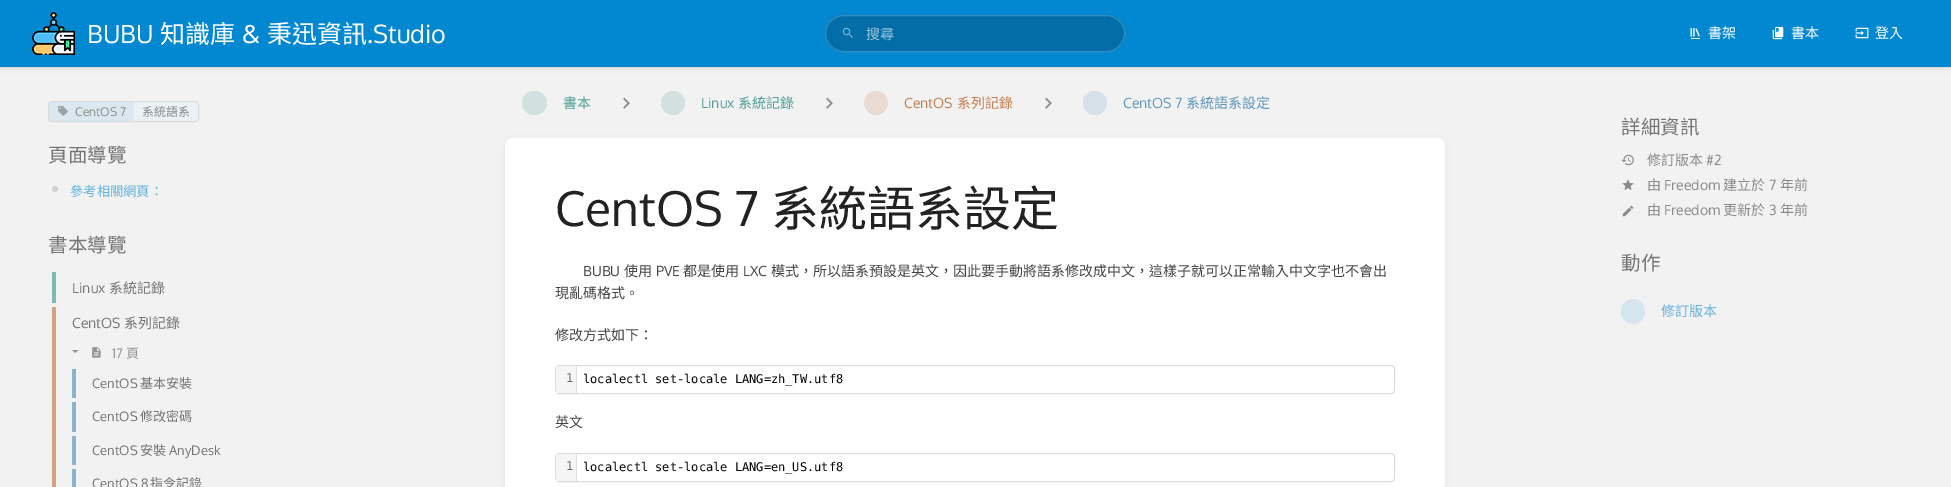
%!PS-Adobe-3.0
%%BoundingBox: 0 0 1951 487
%%LanguageLevel: 3
%%Pages: 1
%%EndComments
%%BeginProlog
/setink { 3 { 255 div 3 1 roll } repeat setrgbcolor } def
/usefont { [ exch dup neg 0 0 3 -1 roll 0 0 ] selectfont } def
/drawtext { setink usefont moveto show } def
/fillbox { setink rectfill } def
/setalpha { dup .setfillconstantalpha .setstrokeconstantalpha } def
/disc { newpath 0 360 arc closepath } def
/rrect { 5 dict begin { /r /h /w /y /x } { exch def } forall
  x r add y moveto x w add y 2 copy h add r arct x w add y h add x 1 index r arct
  x y h add x y r arct x y 2 copy exch w add exch r arct closepath end } def
/softshadow { 12 dict begin { /a /b /q /h /w /y /x } { exch def } forall gsave /was 0 def
  9 -2 -9 { dup b mul 4 div /e exch def 1 sub .425 mul 2.718 exch exp 1 add a .99 .min exch div /now exch def
    1 1 now sub 1 was sub div sub setalpha /was now def
    w h .min e 2 mul add 0 gt { x e sub y e sub w e 2 mul add h e 2 mul add
      q e add b .6 mul add w h .min 2 div e add .min 0 .max rrect fill } if } for grestore end } def
/drawimage { 5 dict begin { /h /w /y /x /name } { exch def } forall
  gsave x y translate w h scale
  w h 8 [w 0 0 h 0 0] name (r) file false 3 colorimage grestore end } def
%%EndProlog
%%BeginSetup
<< /PageSize [1951 487] /PageUsesTransparency true >> setpagedevice
%%EndSetup
%%Page: 1 1
0 .pushpdf14devicefilter
0 487 translate 1 -1 scale
4 setmiterlimit
0 0 1951 487 242 242 242 fillbox
0 0 0 setink
1 2 1949 66 0 3 0.1 softshadow
0 0 1951 67 2 136 209 fillbox
0 67 1951 1 221 221 221 fillbox
(assets/img1.rgb) 32 12 43 43 drawimage
(BUBU) 87 43 /Oxygen-Regular 25 255 255 255 drawtext
(知識庫) 160 43 /NotoSansCJKTC-Regular 25 255 255 255 drawtext
(&) 242 43 /Oxygen-Regular 25 255 255 255 drawtext
(秉迅資訊) 267 43 /NotoSansCJKTC-Regular 25 255 255 255 drawtext
(.Studio) 367 43 /Oxygen-Regular 25 255 255 255 drawtext
2 109 167 setink
825 15 300 37 18.5 rrect fill
0.2 setalpha
255 255 255 setink
825.5 15.5 299 36 18 rrect stroke
1 setalpha
(assets/img2.rgb) 842 27 11 11 drawimage
(搜尋) 866 39 /NotoSansCJKTC-Regular 14 154 197 220 drawtext
(assets/img3.rgb) 1690 28 10 11 drawimage
(書架) 1708 38 /NotoSansCJKTC-Regular 14 255 255 255 drawtext
(assets/img4.rgb) 1772 27 12 13 drawimage
(書本) 1791 38 /NotoSansCJKTC-Regular 14 255 255 255 drawtext
(assets/img5.rgb) 1855 27 14 12 drawimage
(登入) 1875 38 /NotoSansCJKTC-Regular 14 255 255 255 drawtext
209 225 224 setink
522 91 25 24 12 rrect fill
(書本) 563 108 /NotoSansCJKTC-Regular 14 78 159 151 drawtext
(assets/img6.rgb) 623 97 7 12 drawimage
209 225 224 setink
673 103 12 disc fill
(Linux) 701 108 /Oxygen-Regular 14 78 159 151 drawtext
(系統記錄) 738 108 /NotoSansCJKTC-Regular 14 78 159 151 drawtext
(assets/img6.rgb) 826 97 7 12 drawimage
233 219 210 setink
876 103 12 disc fill
(CentOS) 904 108 /Oxygen-Regular 14 195 127 82 drawtext
(系列記錄) 957 108 /NotoSansCJKTC-Regular 14 195 127 82 drawtext
(assets/img6.rgb) 1045 97 7 12 drawimage
213 224 232 setink
1095 103 12 disc fill
(CentOS 7) 1123 108 /Oxygen-Regular 14 95 150 190 drawtext
(系統語系設定) 1186 108 /NotoSansCJKTC-Regular 14 95 150 190 drawtext
0 0 0 setink
506 140 938 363 7 3 0.1 softshadow
255 255 255 setink
505 138 940 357 8 rrect fill
(CentOS 7) 555 226 /Oxygen-Regular 48 34 34 34 drawtext
(系統語系設定) 771 226 /NotoSansCJKTC-Regular 48 34 34 34 drawtext
(BUBU) 583 276 /Oxygen-Regular 14 68 68 68 drawtext
(使用) 624 276 /NotoSansCJKTC-Regular 14 68 68 68 drawtext
(PVE) 656 276 /Oxygen-Regular 14 68 68 68 drawtext
(都是使用) 683 276 /NotoSansCJKTC-Regular 14 68 68 68 drawtext
(LXC) 743 276 /Oxygen-Regular 14 68 68 68 drawtext
(模式，所以語系預設是英文，因此要手動將語系修改成中文，這樣子就可以正常輸入中文字也不會出) 771 276 /NotoSansCJKTC-Regular 14 68 68 68 drawtext
(現亂碼格式。) 555 298 /NotoSansCJKTC-Regular 14 68 68 68 drawtext
(修改方式如下：) 555 340 /NotoSansCJKTC-Regular 14 68 68 68 drawtext
221 221 221 setink
555.5 365.5 839 28 3.5 rrect stroke
556 366 20 27 245 245 245 fillbox
576 366 1 27 221 221 221 fillbox
(1) 566 382 /DejaVuSansMono-Regular 12 108 108 108 drawtext
(localectl set-locale LANG=zh_TW.utf8) 583 383 /DejaVuSansMono-Regular 12 0 0 0 drawtext
(英文) 555 427 /NotoSansCJKTC-Regular 14 68 68 68 drawtext
221 221 221 setink
555.5 453.5 839 28 3.5 rrect stroke
556 454 20 27 245 245 245 fillbox
576 454 1 27 221 221 221 fillbox
(1) 566 470 /DejaVuSansMono-Regular 12 108 108 108 drawtext
(localectl set-locale LANG=en_US.utf8) 583 471 /DejaVuSansMono-Regular 12 0 0 0 drawtext
220 232 239 setink
48.5 101.5 150 20 3.5 rrect gsave fill grestore
219 219 219 setink
stroke
(assets/img7.rgb) 58 106 10 10 drawimage
(CentOS 7) 75 116 /Oxygen-Regular 12 138 138 138 drawtext
0.5 setalpha
250 250 250 setink
133 102 moveto 195 102 lineto 196.5 102 198 103.5 198 105 curveto 198 118 lineto 198 119.5 196.5 121 195 121 curveto 133 121 lineto closepath fill
1 setalpha
133 102 1 19 229 229 229 fillbox
(系統語系) 142 116 /NotoSansCJKTC-Regular 12 138 138 138 drawtext
(頁面導覽) 48 162 /NotoSansCJKTC-Regular 19.5 117 117 117 drawtext
209 209 209 setink
55 189 3 disc fill
(參考相關網頁：) 70 196 /NotoSansCJKTC-Regular 13.25 98 178 222 drawtext
(書本導覽) 48 252 /NotoSansCJKTC-Regular 19.5 117 117 117 drawtext
129 185 180 setink
52 272 4 31 1 rrect fill
(Linux) 72 293 /Oxygen-Regular 14 117 117 117 drawtext
(系統記錄) 109 293 /NotoSansCJKTC-Regular 14 117 117 117 drawtext
210 163 132 setink
52 307 4 31 1 rrect fill
(CentOS) 72 328 /Oxygen-Regular 14 117 117 117 drawtext
(系列記錄) 124 328 /NotoSansCJKTC-Regular 14 117 117 117 drawtext
210 163 132 setink
53 336 moveto 55 336 lineto 55.5 336 56 336.5 56 337 curveto 56 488 lineto 52 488 lineto 52 337 lineto 52 336.5 52.5 336 53 336 curveto closepath fill
149 149 149 setink
72 350 moveto 75 353 lineto 78.5 350 lineto closepath fill
(assets/img8.rgb) 92 347 9 11 drawimage
(17) 112 358 /Oxygen-Regular 13 149 149 149 drawtext
(頁) 126 358 /NotoSansCJKTC-Regular 13 149 149 149 drawtext
141 179 206 setink
72 369 4 29 1 rrect fill
(CentOS) 92 388 /Oxygen-Regular 13 117 117 117 drawtext
(基本安裝) 140 388 /NotoSansCJKTC-Regular 13 117 117 117 drawtext
141 179 206 setink
72 402 4 30 1 rrect fill
(CentOS) 92 421 /Oxygen-Regular 13 117 117 117 drawtext
(修改密碼) 140 421 /NotoSansCJKTC-Regular 13 117 117 117 drawtext
141 179 206 setink
72 436 4 29 1 rrect fill
(CentOS) 92 455 /Oxygen-Regular 13 117 117 117 drawtext
(安裝) 140 455 /NotoSansCJKTC-Regular 13 117 117 117 drawtext
(AnyDesk) 169 455 /Oxygen-Regular 13 117 117 117 drawtext
141 179 206 setink
72 469 4 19 1 rrect fill
(CentOS 8) 92 488 /Oxygen-Regular 13 117 117 117 drawtext
(指令記錄) 150 488 /NotoSansCJKTC-Regular 13 117 117 117 drawtext
(詳細資訊) 1621 134 /NotoSansCJKTC-Regular 19.5 117 117 117 drawtext
(assets/img9.rgb) 1621 154 13 12 drawimage
(修訂版本) 1647 165 /NotoSansCJKTC-Regular 14 138 138 138 drawtext
(#2) 1706 165 /Oxygen-Regular 14 138 138 138 drawtext
(assets/img10.rgb) 1622 179 12 12 drawimage
(由) 1647 190 /NotoSansCJKTC-Regular 14 138 138 138 drawtext
(Freedom) 1664 190 /Oxygen-Regular 14 138 138 138 drawtext
(建立於) 1723 190 /NotoSansCJKTC-Regular 14 138 138 138 drawtext
(7) 1769 190 /Oxygen-Regular 14 138 138 138 drawtext
(年前) 1780 190 /NotoSansCJKTC-Regular 14 138 138 138 drawtext
(assets/img11.rgb) 1622 205 12 12 drawimage
(由) 1647 215 /NotoSansCJKTC-Regular 14 138 138 138 drawtext
(Freedom) 1664 215 /Oxygen-Regular 14 138 138 138 drawtext
(更新於) 1723 215 /NotoSansCJKTC-Regular 14 138 138 138 drawtext
(3) 1769 215 /Oxygen-Regular 14 138 138 138 drawtext
(年前) 1780 215 /NotoSansCJKTC-Regular 14 138 138 138 drawtext
(動作) 1621 270 /NotoSansCJKTC-Regular 19.5 117 117 117 drawtext
213 229 238 setink
1621 299 24 25 12 rrect fill
(修訂版本) 1661 316 /NotoSansCJKTC-Regular 14 98 178 222 drawtext
.poppdf14devicefilter showpage
%%EOF
